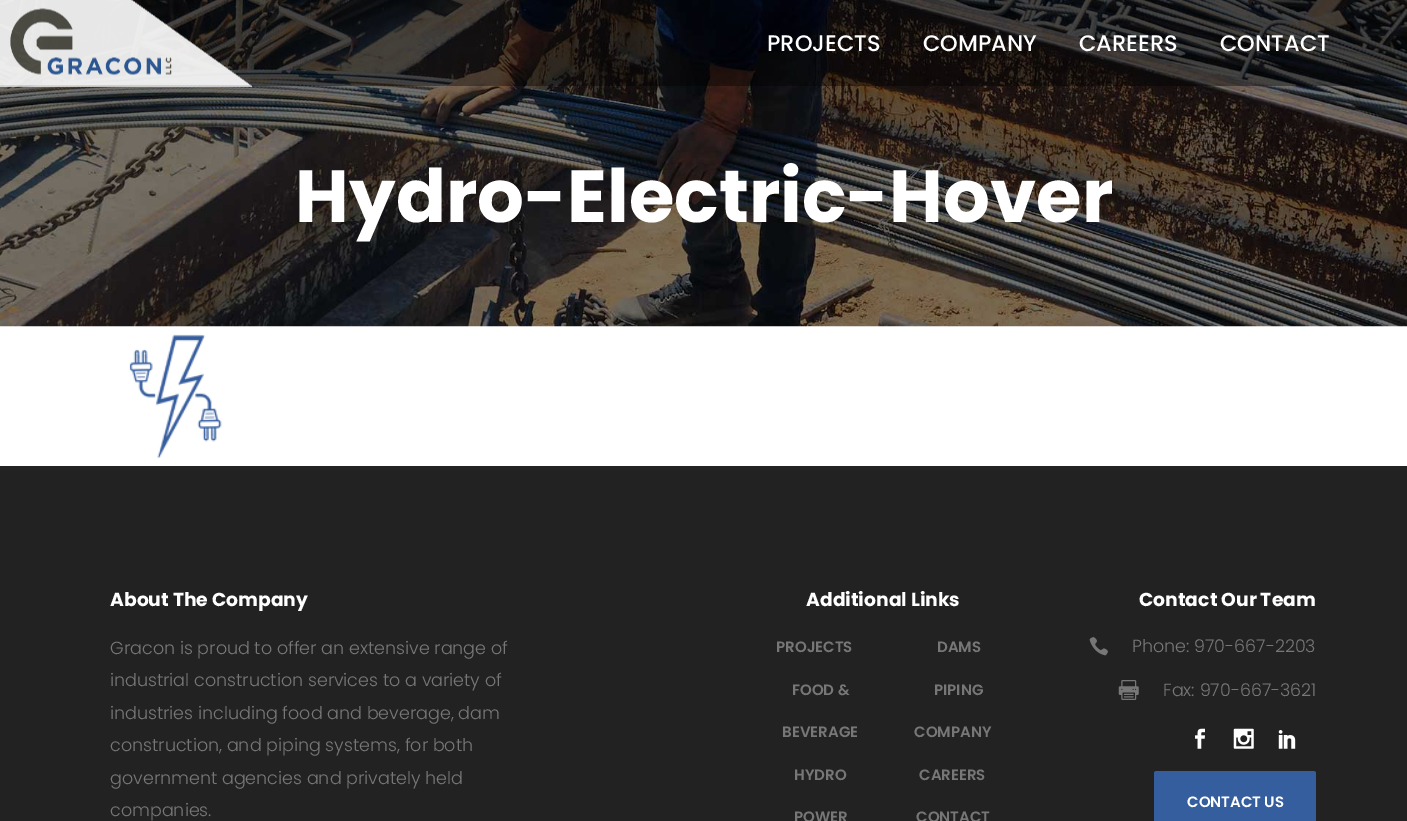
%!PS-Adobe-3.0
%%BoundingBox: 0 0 1407 821
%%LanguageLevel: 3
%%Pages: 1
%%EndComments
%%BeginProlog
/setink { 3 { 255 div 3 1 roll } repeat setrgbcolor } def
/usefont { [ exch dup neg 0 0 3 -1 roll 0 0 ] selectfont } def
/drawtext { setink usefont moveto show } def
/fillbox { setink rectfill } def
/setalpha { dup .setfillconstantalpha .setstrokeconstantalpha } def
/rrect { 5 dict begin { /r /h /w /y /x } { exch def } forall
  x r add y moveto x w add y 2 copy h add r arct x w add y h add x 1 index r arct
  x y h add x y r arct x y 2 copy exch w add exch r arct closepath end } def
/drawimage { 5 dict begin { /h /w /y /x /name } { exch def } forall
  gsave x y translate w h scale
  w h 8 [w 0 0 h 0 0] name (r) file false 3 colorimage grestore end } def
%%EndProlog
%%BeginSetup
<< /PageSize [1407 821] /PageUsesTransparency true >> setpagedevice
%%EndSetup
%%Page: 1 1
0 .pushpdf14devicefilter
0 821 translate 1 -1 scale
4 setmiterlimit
0 0 1407 821 255 255 255 fillbox
(assets/img2.rgb) 0 0 1407 327 drawimage
0.4 setalpha
0 0 1407 86 0 0 0 fillbox
1 setalpha
(assets/img1.rgb) 0 0 252 87 drawimage
(PROJECTS) 767 51 /Poppins-Medium 22.5 255 255 255 drawtext
(COMPANY) 923 51 /Poppins-Medium 22.5 255 255 255 drawtext
(CAREERS) 1079 51 /Poppins-Medium 22.5 255 255 255 drawtext
(CONTACT) 1220 51 /Poppins-Medium 22.5 255 255 255 drawtext
(Hydro-Electric-Hover) 295 222 /Poppins-Bold 73.75 255 255 255 drawtext
(assets/img3.rgb) 129 334 93 124 drawimage
0 466 1407 355 34 34 34 fillbox
(About The Company) 110 606 /Poppins-Bold 18.75 255 255 255 drawtext
(Gracon is proud to offer an extensive range of) 110 654 /Poppins-Light 17.5 119 119 119 drawtext
(industrial construction services to a variety of) 110 686 /Poppins-Light 17.5 119 119 119 drawtext
(industries including food and beverage, dam) 110 719 /Poppins-Light 17.5 119 119 119 drawtext
(construction, and piping systems, for both) 110 751 /Poppins-Light 17.5 119 119 119 drawtext
(government agencies and privately held) 110 784 /Poppins-Light 17.5 119 119 119 drawtext
(companies.) 110 816 /Poppins-Light 17.5 119 119 119 drawtext
(Additional Links) 806 606 /Poppins-Bold 18.75 255 255 255 drawtext
(PROJECTS) 776 652 /Poppins-SemiBold 15 119 119 119 drawtext
(DAMS) 937 652 /Poppins-SemiBold 15 119 119 119 drawtext
(FOOD &) 792 695 /Poppins-SemiBold 15 119 119 119 drawtext
(BEVERAGE) 782 737 /Poppins-SemiBold 15 119 119 119 drawtext
(PIPING) 934 695 /Poppins-SemiBold 15 119 119 119 drawtext
(HYDRO) 794 780 /Poppins-SemiBold 15 119 119 119 drawtext
(POWER) 794 822 /Poppins-SemiBold 15 119 119 119 drawtext
(COMPANY) 914 737 /Poppins-SemiBold 15 119 119 119 drawtext
(CAREERS) 919 780 /Poppins-SemiBold 15 119 119 119 drawtext
(CONTACT) 916 822 /Poppins-SemiBold 15 119 119 119 drawtext
(Contact Our Team) 1139 606 /Poppins-Bold 18.75 255 255 255 drawtext
(assets/img4.rgb) 1089 637 19 19 drawimage
(Phone: 970-667-2203) 1132 652 /Poppins-Light 17.5 119 119 119 drawtext
(assets/img5.rgb) 1118 680 21 20 drawimage
(Fax: 970-667-3621) 1163 696 /Poppins-Light 17.5 119 119 119 drawtext
(assets/img6.rgb) 1195 728 10 21 drawimage
(assets/img7.rgb) 1233 728 21 21 drawimage
(assets/img8.rgb) 1278 730 18 19 drawimage
53 94 158 setink
1154 771 162 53 2.5 rrect fill
(CONTACT US) 1187 807 /Poppins-SemiBold 15 255 255 255 drawtext
.poppdf14devicefilter showpage
%%EOF
